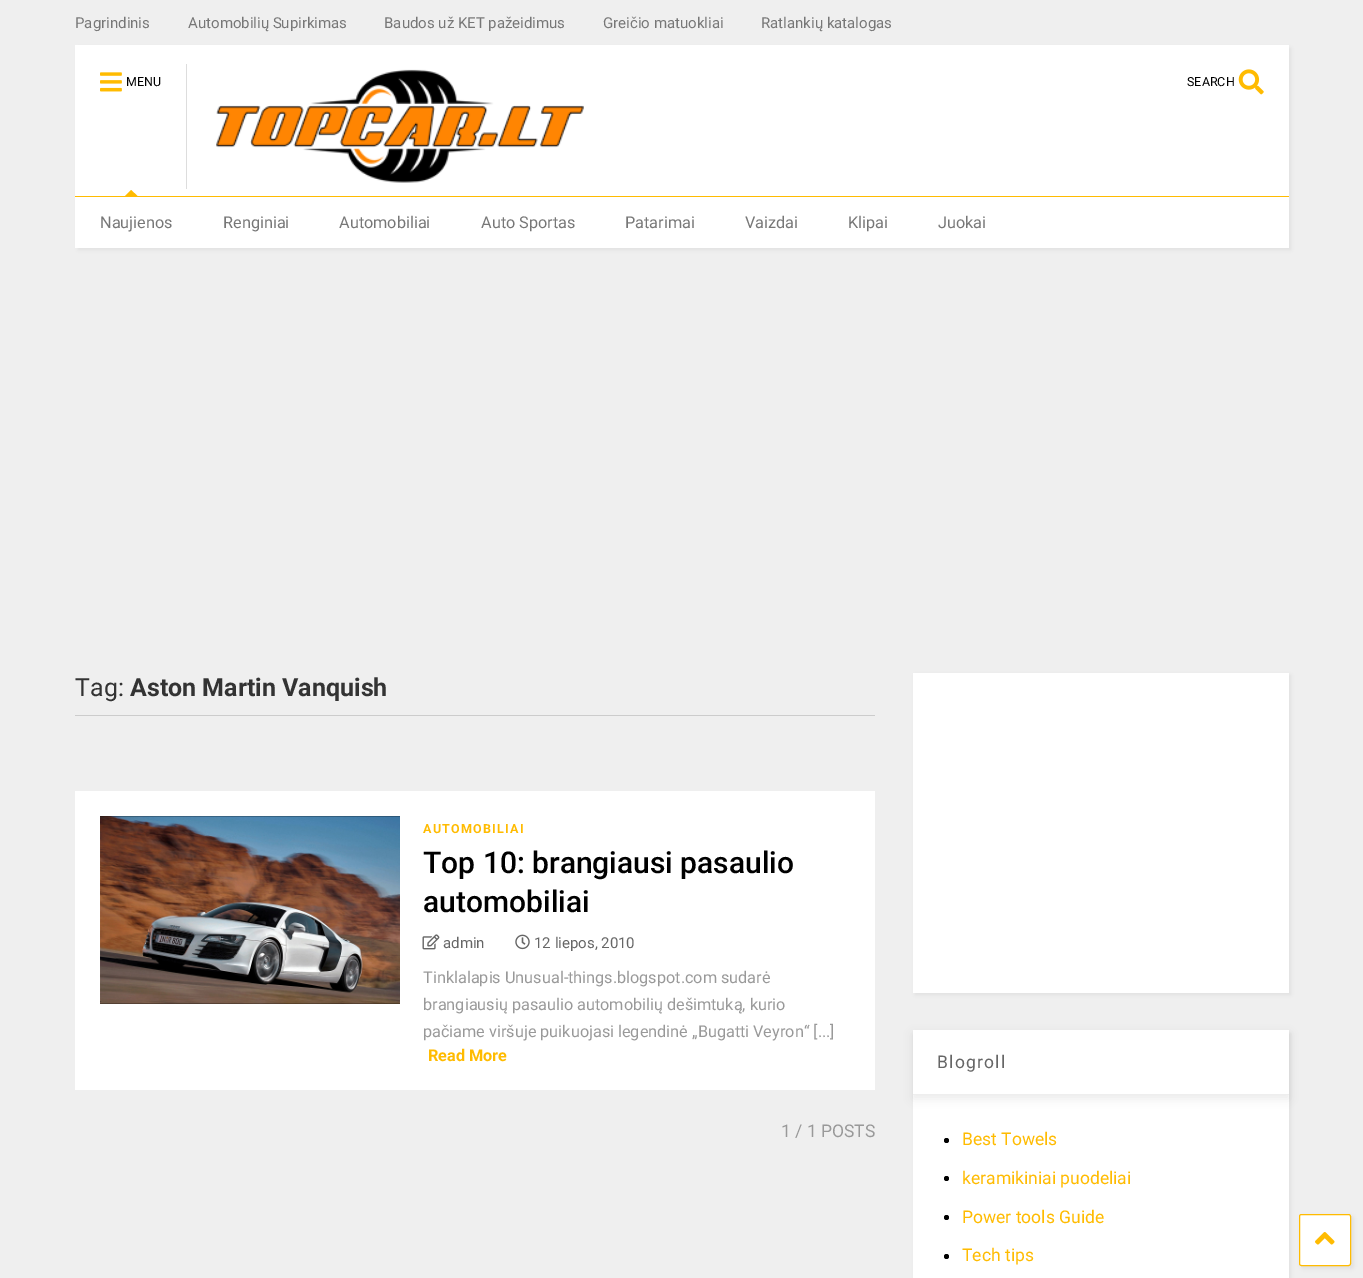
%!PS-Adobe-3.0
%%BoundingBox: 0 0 1363 1278
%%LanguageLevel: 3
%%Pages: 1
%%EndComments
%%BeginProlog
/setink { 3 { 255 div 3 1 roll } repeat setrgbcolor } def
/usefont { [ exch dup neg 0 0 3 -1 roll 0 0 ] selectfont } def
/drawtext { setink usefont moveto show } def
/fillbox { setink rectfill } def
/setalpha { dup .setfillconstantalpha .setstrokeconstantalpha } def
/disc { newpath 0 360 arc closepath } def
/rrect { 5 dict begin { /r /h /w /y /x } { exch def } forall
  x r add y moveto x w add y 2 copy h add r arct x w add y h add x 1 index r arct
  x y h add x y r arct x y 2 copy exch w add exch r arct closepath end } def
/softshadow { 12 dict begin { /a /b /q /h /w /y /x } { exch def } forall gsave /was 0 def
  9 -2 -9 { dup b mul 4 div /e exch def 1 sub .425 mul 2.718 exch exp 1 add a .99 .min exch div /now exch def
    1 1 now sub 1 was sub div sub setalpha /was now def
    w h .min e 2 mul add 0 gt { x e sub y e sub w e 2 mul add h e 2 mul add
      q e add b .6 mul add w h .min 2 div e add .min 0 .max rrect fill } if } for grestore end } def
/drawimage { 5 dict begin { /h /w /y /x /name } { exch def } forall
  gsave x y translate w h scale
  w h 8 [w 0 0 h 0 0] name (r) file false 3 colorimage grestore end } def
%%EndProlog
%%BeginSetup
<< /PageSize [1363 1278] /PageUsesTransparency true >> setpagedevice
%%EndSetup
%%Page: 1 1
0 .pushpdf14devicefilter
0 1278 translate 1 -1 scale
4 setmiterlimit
0 0 1363 1278 239 239 239 fillbox
(Pagrindinis) 75 28 /Roboto-Regular 15 119 119 119 drawtext
(Automobilių Supirkimas) 188 28 /Roboto-Regular 15 119 119 119 drawtext
(Baudos už KET pažeidimus) 384 28 /Roboto-Regular 15 119 119 119 drawtext
(Greičio matuokliai) 603 28 /Roboto-Regular 15 119 119 119 drawtext
(Ratlankių katalogas) 761 28 /Roboto-Regular 15 119 119 119 drawtext
0 0 0 setink
78 48 1213 202 0 2 0.05 softshadow
75 45 1214 203 255 255 255 fillbox
(assets/img1.rgb) 100 72 22 20 drawimage
(MENU) 126 86 /Roboto-Regular 12.5 0 0 0 drawtext
255 187 1 setink
137.5 196 moveto 125 196 lineto 131 190 lineto closepath fill
186 64 1 125 221 221 221 fillbox
(assets/img2.rgb) 216 69 368 114 drawimage
(SEARCH) 1187 86 /Roboto-Regular 12.5 0 0 0 drawtext
(assets/img3.rgb) 1238 69 26 26 drawimage
75 196 1214 1 255 187 1 fillbox
(Naujienos) 100 228 /Roboto-Regular 16.25 119 119 119 drawtext
(Renginiai) 223 228 /Roboto-Regular 16.25 119 119 119 drawtext
(Automobiliai) 339 228 /Roboto-Regular 16.25 119 119 119 drawtext
(Auto Sportas) 481 228 /Roboto-Regular 16.25 119 119 119 drawtext
(Patarimai) 625 228 /Roboto-Regular 16.25 119 119 119 drawtext
(Vaizdai) 745 228 /Roboto-Regular 16.25 119 119 119 drawtext
(Klipai) 848 228 /Roboto-Regular 16.25 119 119 119 drawtext
(Juokai) 938 228 /Roboto-Regular 16.25 119 119 119 drawtext
75 715 800 1 204 204 204 fillbox
(Tag:) 75 696 /Roboto-Regular 25 51 51 51 drawtext
(Aston Martin Vanquish) 130 696 /Roboto-Bold 25 51 51 51 drawtext
75 791 800 299 255 255 255 fillbox
(assets/img4.rgb) 100 816 300 188 drawimage
/Roboto-Bold 12.5 usefont
255 187 1 setink
423 833 moveto 1.25 0 (AUTOMOBILIAI) ashow
(Top 10: brangiausi pasaulio) 423 873 /Roboto-Medium 30 0 0 0 drawtext
(automobiliai) 423 912 /Roboto-Medium 30 0 0 0 drawtext
(assets/img5.rgb) 422 934 18 16 drawimage
(admin) 443 948 /Roboto-Regular 15 102 102 102 drawtext
(assets/img6.rgb) 515 934 15 16 drawimage
(12 liepos, 2010) 534 948 /Roboto-Regular 15 102 102 102 drawtext
(Tinklalapis Unusual-things.blogspot.com sudarė) 423 983 /Roboto-Regular 16.25 153 153 153 drawtext
(brangiausių pasaulio automobilių dešimtuką, kurio) 423 1010 /Roboto-Regular 16.25 153 153 153 drawtext
(pačiame viršuje puikuojasi legendinė „Bugatti Veyron“ [...]) 423 1037 /Roboto-Regular 16.25 153 153 153 drawtext
(Read More) 428 1061 /Roboto-Bold 16.25 255 187 1 drawtext
(1 / 1 POSTS) 781 1137 /Roboto-Regular 17.5 153 153 153 drawtext
0 0 0 setink
915 675 376 320 0 2 0.05 softshadow
913 673 376 320 255 255 255 fillbox
0 0 0 setink
915 1033 376 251 0 2 0.05 softshadow
913 1030 376 248 255 255 255 fillbox
gsave
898 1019 moveto 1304 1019 lineto 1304 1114 lineto 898 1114 lineto closepath 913 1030 moveto 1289 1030 lineto 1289 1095 lineto 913 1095 lineto closepath eoclip newpath
0 0 0 setink
913 1034 376 65 0 4.5 0.07 softshadow
grestore
913 1094 376 1 238 238 238 fillbox
102 102 102 setink
937 1068 moveto 1.25 0 (Blogroll) ashow
0 0 0 setink
946.5 1140.5 2.5 disc fill
(Best Towels) 962 1145 /Roboto-Regular 17.5 255 187 1 drawtext
0 0 0 setink
946.5 1178.5 2.5 disc fill
(keramikiniai puodeliai) 962 1184 /Roboto-Regular 17.5 255 187 1 drawtext
0 0 0 setink
946.5 1217.5 2.5 disc fill
(Power tools Guide) 962 1223 /Roboto-Regular 17.5 255 187 1 drawtext
0 0 0 setink
946.5 1256.5 2.5 disc fill
(Tech tips) 962 1261 /Roboto-Regular 17.5 255 187 1 drawtext
0 0 0 setink
1301 1216 53 53 2.5 2 0.05 softshadow
255 255 255 setink
1299.5 1214.5 51 51 2 rrect gsave fill grestore
255 187 1 setink
stroke
(assets/img7.rgb) 1315 1232 20 13 drawimage
.poppdf14devicefilter showpage
%%EOF
